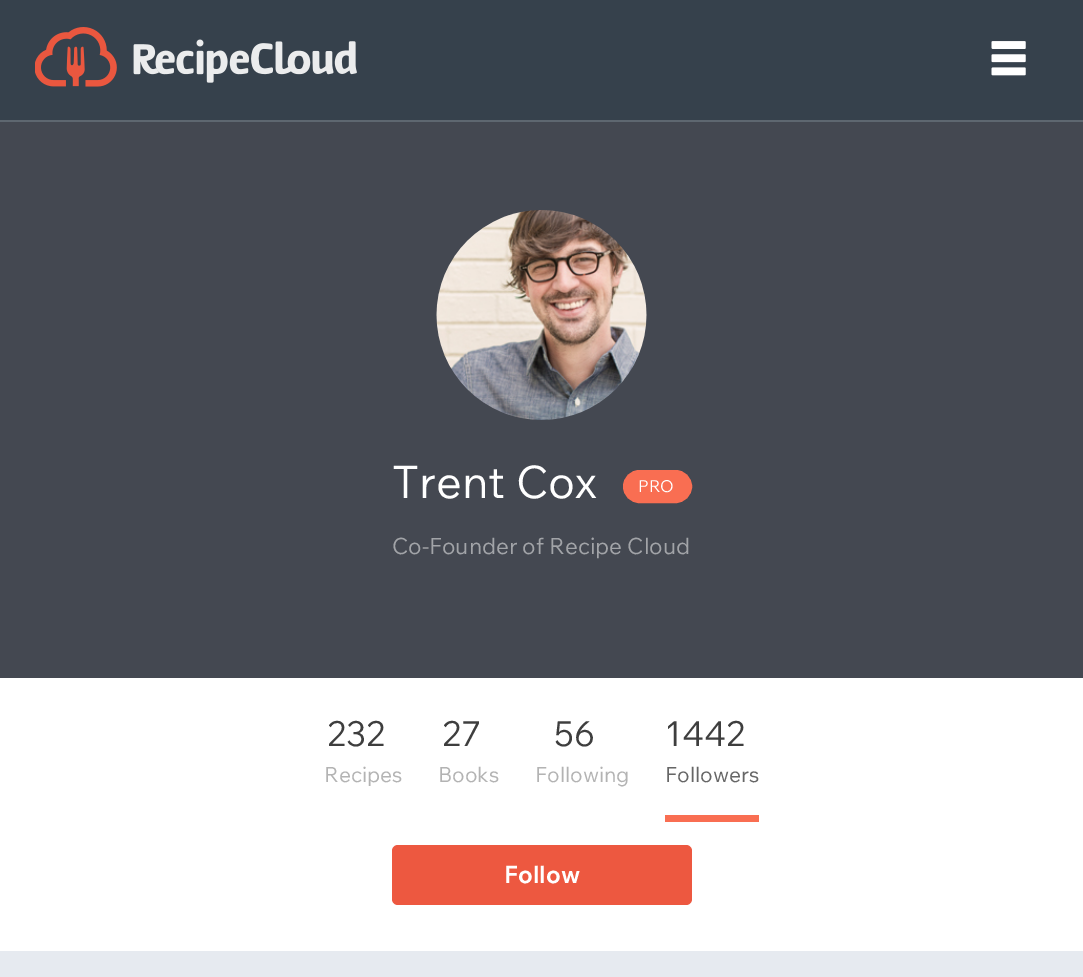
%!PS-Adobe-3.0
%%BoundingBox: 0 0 1083 977
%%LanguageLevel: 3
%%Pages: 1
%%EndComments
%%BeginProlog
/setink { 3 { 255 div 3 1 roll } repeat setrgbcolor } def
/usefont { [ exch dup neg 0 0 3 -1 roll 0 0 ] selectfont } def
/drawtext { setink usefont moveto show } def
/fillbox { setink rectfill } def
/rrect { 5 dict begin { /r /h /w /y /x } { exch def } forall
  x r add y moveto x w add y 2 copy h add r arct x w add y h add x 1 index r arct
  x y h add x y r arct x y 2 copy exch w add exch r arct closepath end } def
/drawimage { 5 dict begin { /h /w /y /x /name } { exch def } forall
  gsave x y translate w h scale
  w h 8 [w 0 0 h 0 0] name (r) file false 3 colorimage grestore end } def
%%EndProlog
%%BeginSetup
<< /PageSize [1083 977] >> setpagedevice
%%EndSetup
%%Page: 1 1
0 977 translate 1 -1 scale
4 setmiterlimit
0 0 1083 977 230 234 240 fillbox
0 0 1083 120 54 65 76 fillbox
0 120 1083 2 94 103 112 fillbox
(assets/img1.rgb) 35 27 322 60 drawimage
(assets/img2.rgb) 991 41 35 35 drawimage
0 122 1083 556 68 72 81 fillbox
(assets/img3.rgb) 436 210 211 210 drawimage
(Trent Cox) 392 498 /WixMadeforText-Regular 45 255 255 255 drawtext
249 110 82 setink
624 471 67 31 15.5 rrect gsave fill grestore
2 setlinewidth
stroke
(PRO) 638 492 /WixMadeforText-Regular 16.5 255 255 255 drawtext
(Co-Founder of Recipe Cloud) 392 554 /WixMadeforText-Regular 22.5 162 164 168 drawtext
0 678 1083 273 255 255 255 fillbox
(232) 327 746 /WixMadeforText-Regular 34.5 62 62 62 drawtext
(Recipes) 324 782 /WixMadeforText-Regular 21 179 179 179 drawtext
(27) 442 746 /WixMadeforText-Regular 34.5 62 62 62 drawtext
(Books) 438 782 /WixMadeforText-Regular 21 179 179 179 drawtext
(56) 554 746 /WixMadeforText-Regular 34.5 62 62 62 drawtext
(Following) 535 782 /WixMadeforText-Regular 21 179 179 179 drawtext
665 815 94 7 249 110 82 fillbox
(1442) 665 746 /WixMadeforText-Regular 34.5 62 62 62 drawtext
(Followers) 665 782 /WixMadeforText-Regular 21 102 102 102 drawtext
237 88 64 setink
392 845 300 60 6 rrect fill
(Follow) 504 883 /WixMadeforText-Bold 24 255 255 255 drawtext
showpage
%%EOF
